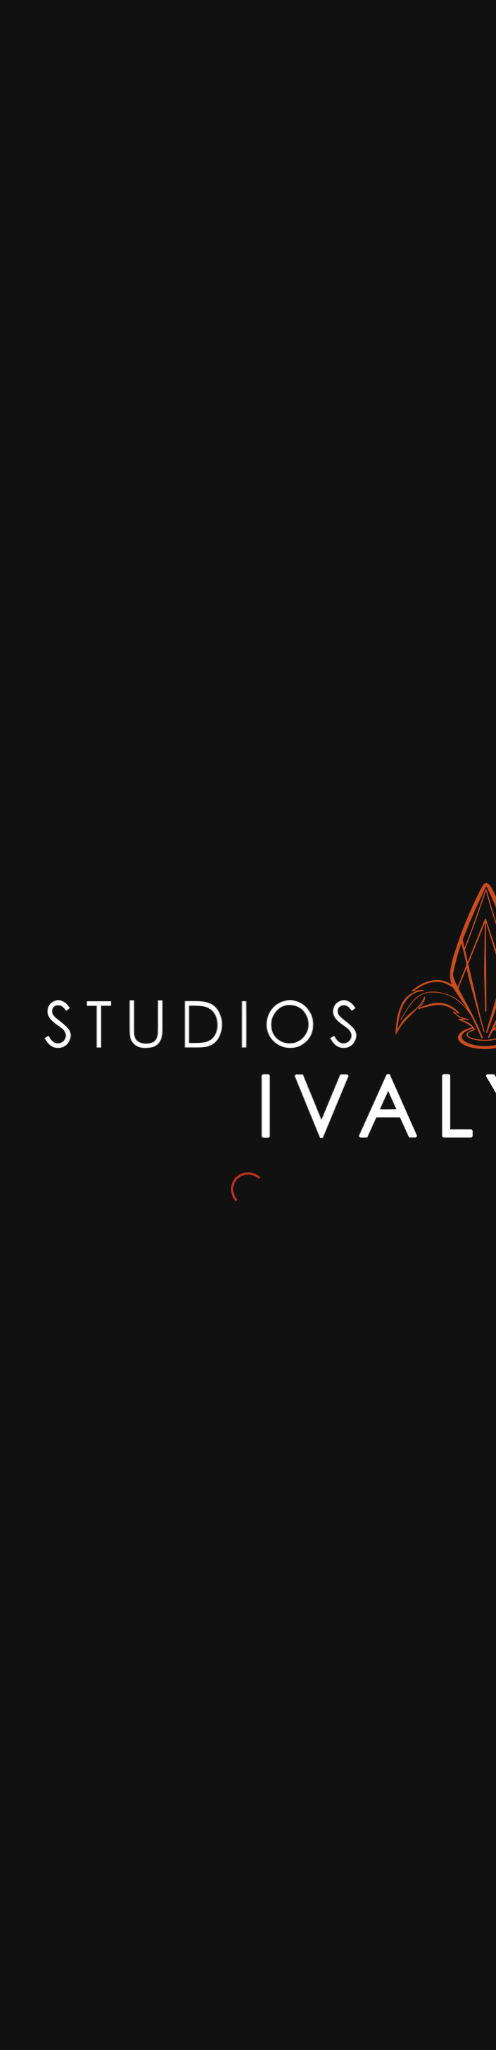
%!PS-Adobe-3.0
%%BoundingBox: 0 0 496 2050
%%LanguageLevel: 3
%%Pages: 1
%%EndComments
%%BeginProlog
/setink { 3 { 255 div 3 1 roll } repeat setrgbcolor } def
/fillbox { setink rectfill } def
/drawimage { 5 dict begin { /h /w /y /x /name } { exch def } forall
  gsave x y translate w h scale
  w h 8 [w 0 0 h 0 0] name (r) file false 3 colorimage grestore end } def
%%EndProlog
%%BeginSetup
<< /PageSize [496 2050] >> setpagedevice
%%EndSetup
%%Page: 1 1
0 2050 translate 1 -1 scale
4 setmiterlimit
0 0 496 2050 17 17 17 fillbox
(assets/img1.rgb) 44 883 452 256 drawimage
184 48 31 setink
2 setlinewidth
236.5 1200.5 moveto 234.5 1198.5 233 1195.5 232.5 1192.5 curveto 229 1177 248 1167 259.5 1178 curveto stroke
showpage
%%EOF
